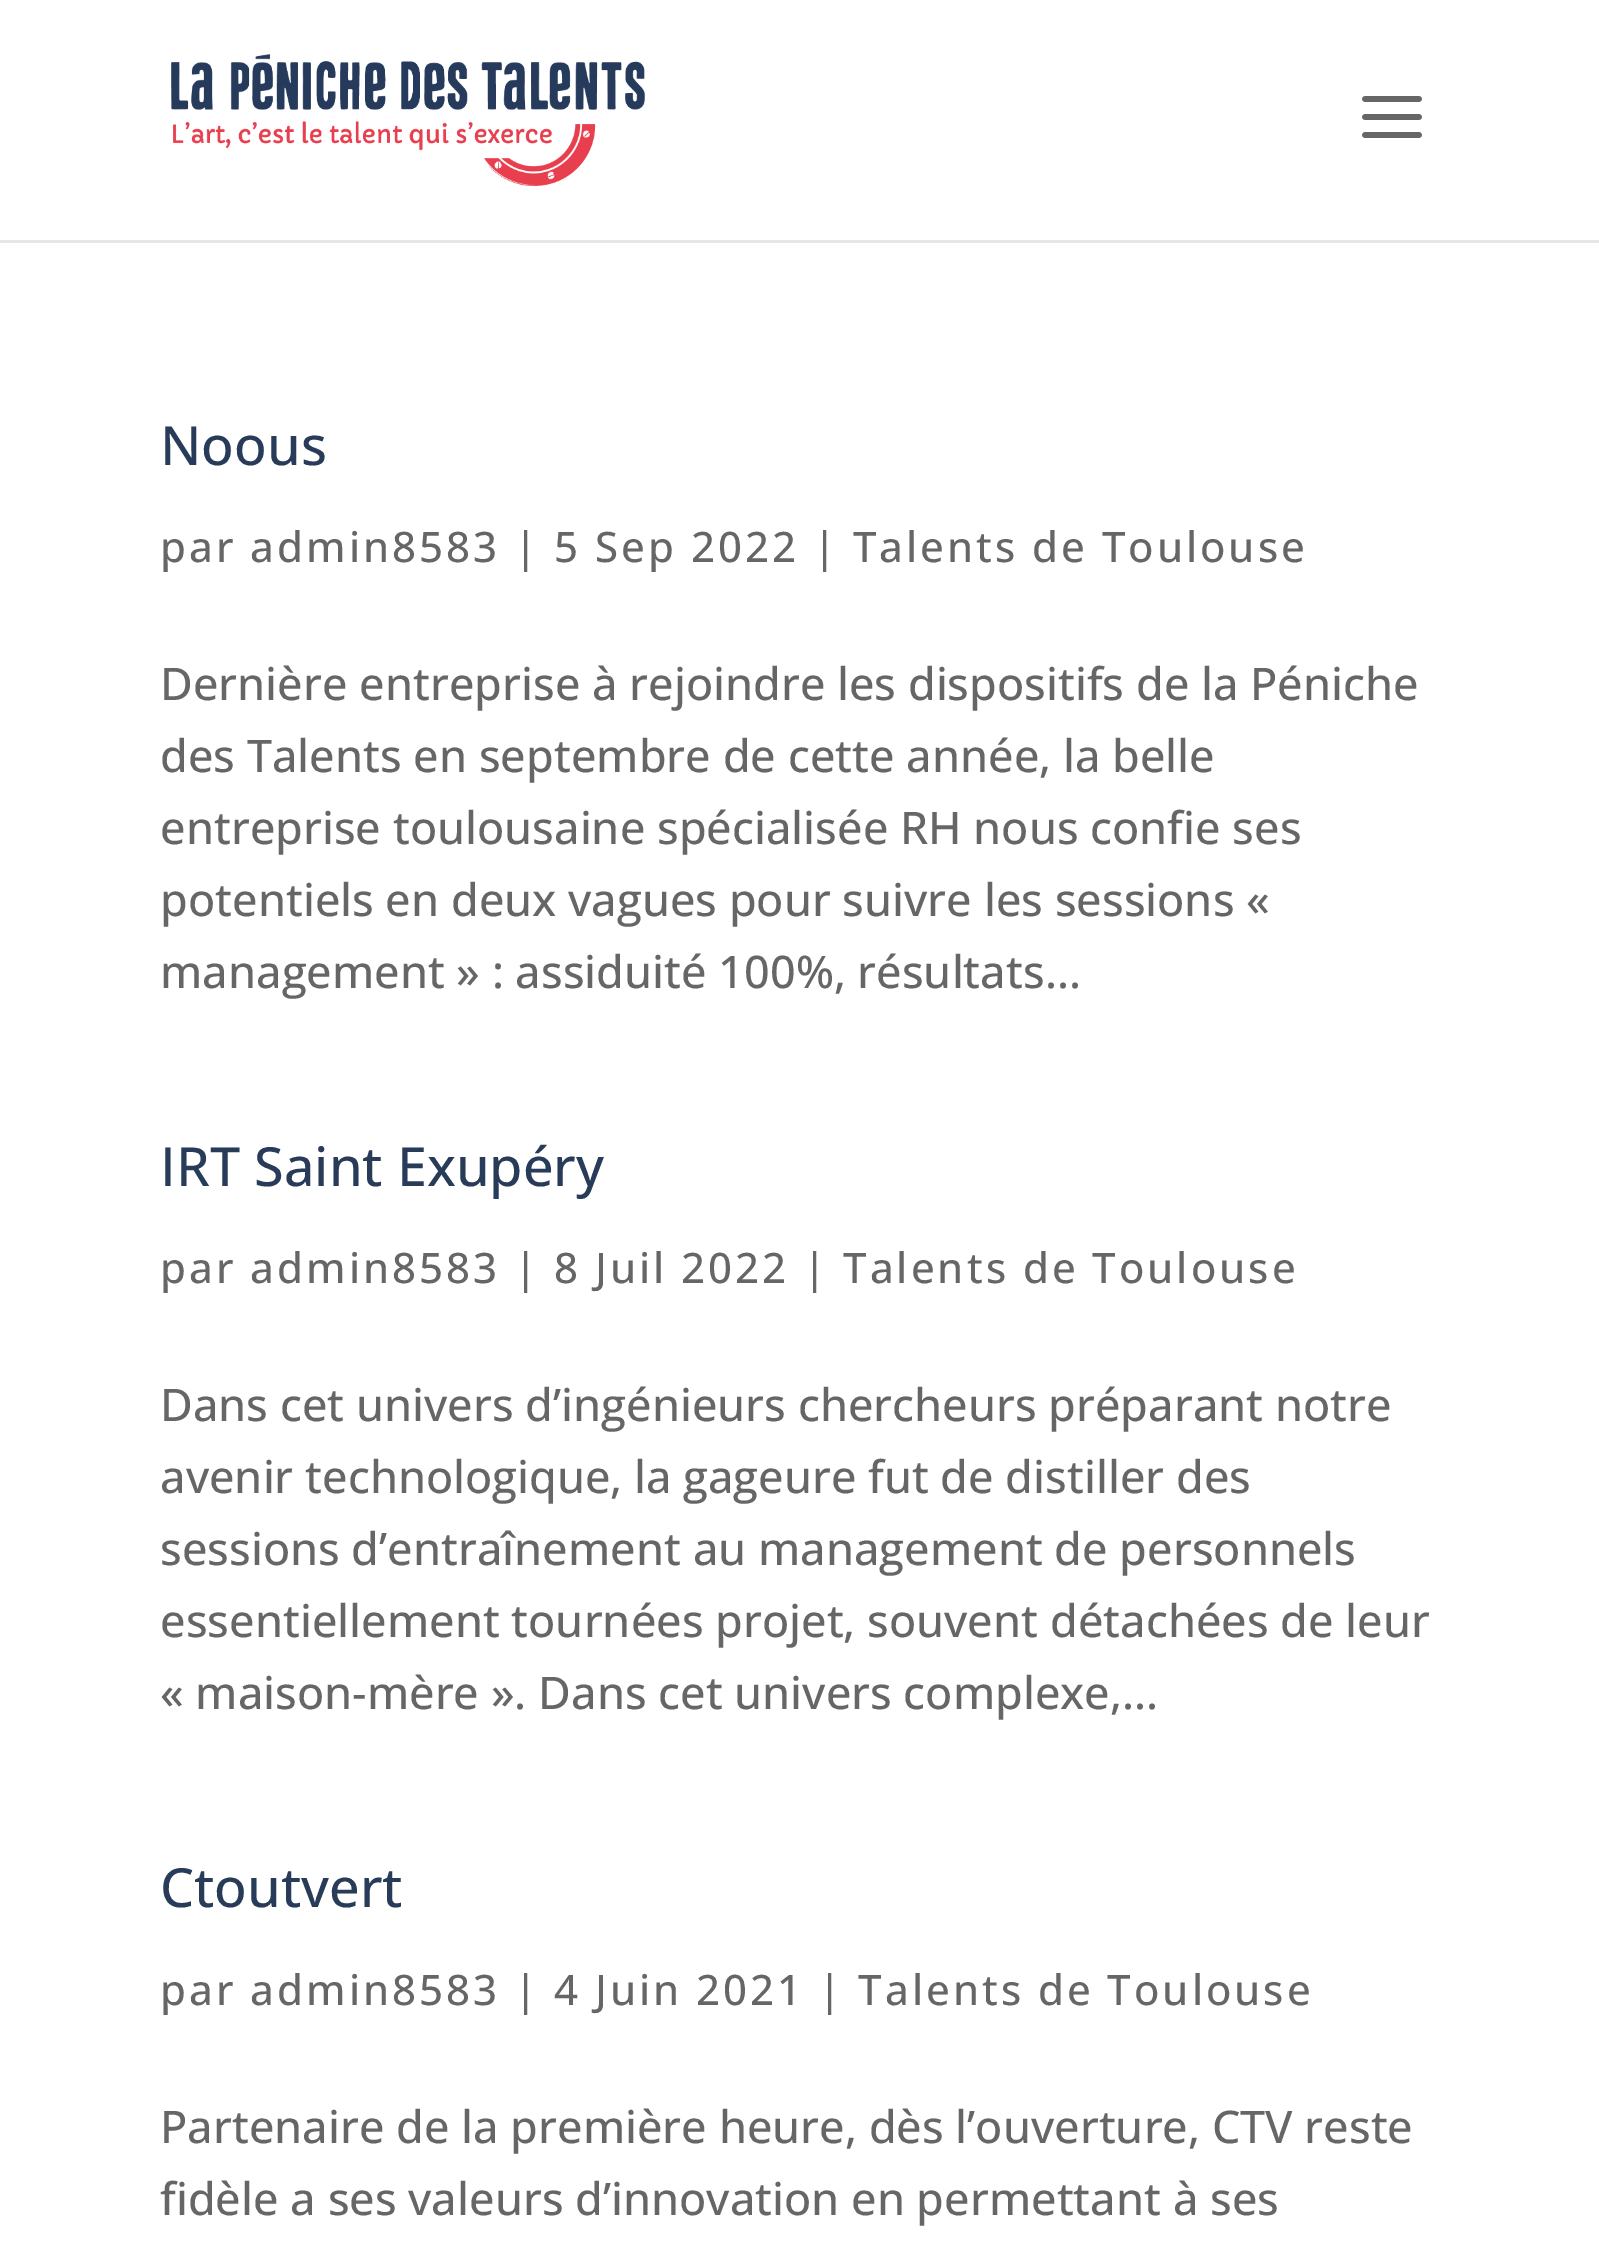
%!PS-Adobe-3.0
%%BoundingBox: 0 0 1599 2253
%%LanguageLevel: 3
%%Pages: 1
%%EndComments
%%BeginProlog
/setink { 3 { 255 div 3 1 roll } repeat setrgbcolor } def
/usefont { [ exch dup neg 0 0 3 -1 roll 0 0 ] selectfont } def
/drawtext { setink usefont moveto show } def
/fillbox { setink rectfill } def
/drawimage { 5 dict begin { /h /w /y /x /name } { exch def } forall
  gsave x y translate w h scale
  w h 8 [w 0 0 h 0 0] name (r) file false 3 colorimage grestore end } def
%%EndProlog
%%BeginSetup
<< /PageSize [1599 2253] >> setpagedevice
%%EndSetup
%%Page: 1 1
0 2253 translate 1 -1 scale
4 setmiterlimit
0 0 1599 2253 255 255 255 fillbox
0 240 1599 3 230 230 230 fillbox
(assets/img1.rgb) 171 54 474 132 drawimage
(assets/img2.rgb) 1362 96 60 42 drawimage
(Noous) 160 465 /OpenSans-Medium 54 40 60 90 drawtext
/OpenSans-Medium 42 usefont
102 102 102 setink
160 562 moveto 3 0 (par admin8583 | 5 Sep 2022 | Talents de Toulouse) ashow
(Dernière entreprise à rejoindre les dispositifs de la Péniche) 160 700 /OpenSans-Medium 45 102 102 102 drawtext
(des Talents en septembre de cette année, la belle) 160 772 /OpenSans-Medium 45 102 102 102 drawtext
(entreprise toulousaine spécialisée RH nous confie ses) 160 844 /OpenSans-Medium 45 102 102 102 drawtext
(potentiels en deux vagues pour suivre les sessions «) 160 916 /OpenSans-Medium 45 102 102 102 drawtext
(management » : assiduité 100%, résultats...) 160 988 /OpenSans-Medium 45 102 102 102 drawtext
(IRT Saint Exupéry) 160 1186 /OpenSans-Medium 54 40 60 90 drawtext
/OpenSans-Medium 42 usefont
102 102 102 setink
160 1283 moveto 3 0 (par admin8583 | 8 Juil 2022 | Talents de Toulouse) ashow
(Dans cet univers d’ingénieurs chercheurs préparant notre) 160 1421 /OpenSans-Medium 45 102 102 102 drawtext
(avenir technologique, la gageure fut de distiller des) 160 1493 /OpenSans-Medium 45 102 102 102 drawtext
(sessions d’entraînement au management de personnels) 160 1565 /OpenSans-Medium 45 102 102 102 drawtext
(essentiellement tournées projet, souvent détachées de leur) 160 1637 /OpenSans-Medium 45 102 102 102 drawtext
(« maison-mère ». Dans cet univers complexe,...) 160 1709 /OpenSans-Medium 45 102 102 102 drawtext
(Ctoutvert) 160 1907 /OpenSans-Medium 54 40 60 90 drawtext
/OpenSans-Medium 42 usefont
102 102 102 setink
160 2005 moveto 3 0 (par admin8583 | 4 Juin 2021 | Talents de Toulouse) ashow
(Partenaire de la première heure, dès l’ouverture, CTV reste) 160 2143 /OpenSans-Medium 45 102 102 102 drawtext
(fidèle a ses valeurs d’innovation en permettant à ses) 160 2215 /OpenSans-Medium 45 102 102 102 drawtext
showpage
%%EOF
